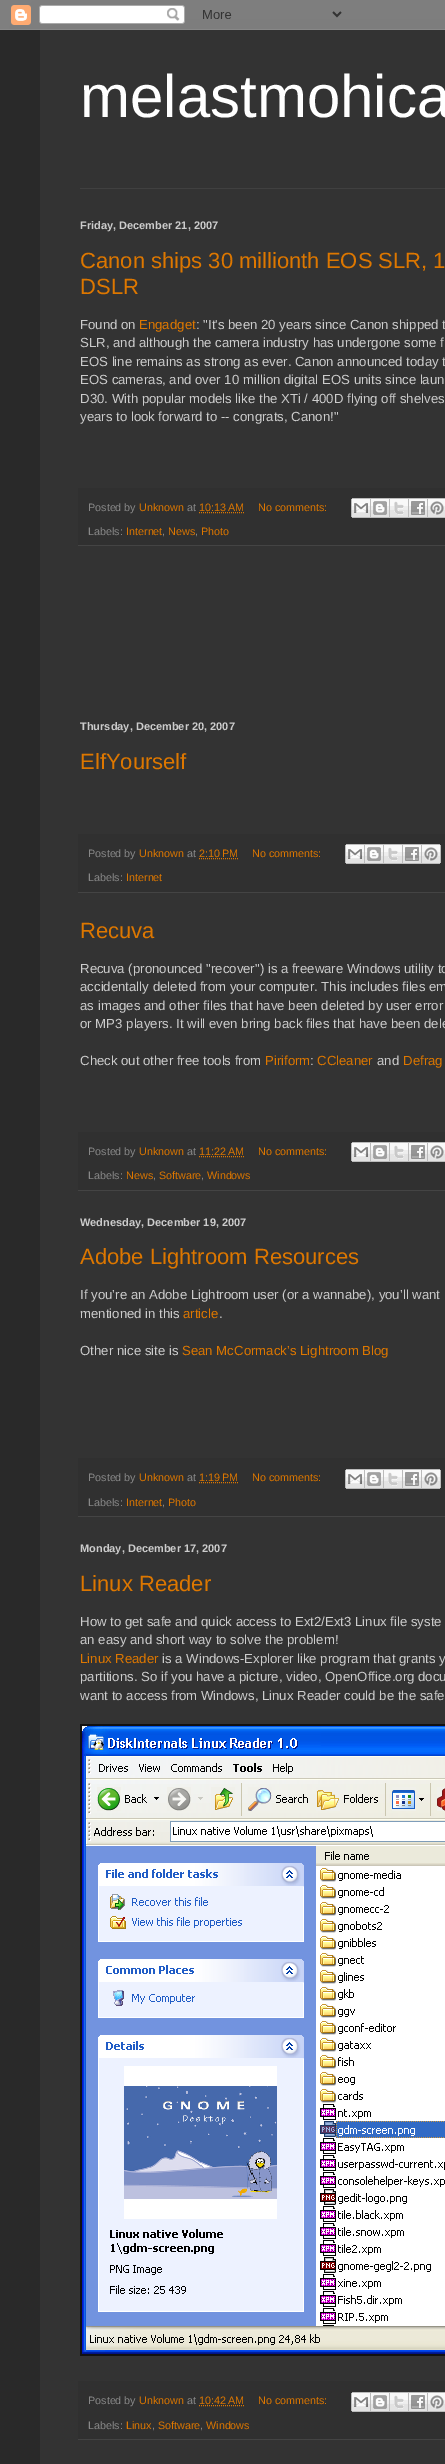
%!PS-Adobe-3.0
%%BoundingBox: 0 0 445 2464
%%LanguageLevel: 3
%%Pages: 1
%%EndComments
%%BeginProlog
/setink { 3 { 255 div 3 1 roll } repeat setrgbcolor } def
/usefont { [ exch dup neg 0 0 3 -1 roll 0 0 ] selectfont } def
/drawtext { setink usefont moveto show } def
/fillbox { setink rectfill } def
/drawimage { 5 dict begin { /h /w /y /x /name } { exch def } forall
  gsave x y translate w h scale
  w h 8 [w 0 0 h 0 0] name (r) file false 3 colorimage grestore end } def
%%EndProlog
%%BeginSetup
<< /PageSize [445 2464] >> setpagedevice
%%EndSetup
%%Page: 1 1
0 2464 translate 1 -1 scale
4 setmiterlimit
0 0 445 2464 41 41 41 fillbox
(assets/img1.rgb) 0 0 445 30 drawimage
40 30 405 2434 51 51 51 fillbox
(melastmohica) 80 117 /LiberationSans-Regular 60 255 255 255 drawtext
80 188 365 1 64 64 64 fillbox
(Friday, December 21, 2007) 80 229 /LiberationSans-Bold 11 204 204 204 drawtext
(Canon ships 30 millionth EOS SLR, 1) 80 268 /LiberationSans-Regular 22 221 119 0 drawtext
(DSLR) 80 294 /LiberationSans-Regular 22 221 119 0 drawtext
(Found on) 80 329 /LiberationSans-Regular 13.2 204 204 204 drawtext
(Engadget) 139 329 /LiberationSans-Regular 13.2 221 119 0 drawtext
(: "It's been 20 years since Canon shipped t) 196 329 /LiberationSans-Regular 13.2 204 204 204 drawtext
(SLR, and although the camera industry has undergone some f) 80 347 /LiberationSans-Regular 13.2 204 204 204 drawtext
(EOS line remains as strong as ever. Canon announced today t) 80 366 /LiberationSans-Regular 13.2 204 204 204 drawtext
(EOS cameras, and over 10 million digital EOS units since laun) 80 384 /LiberationSans-Regular 13.2 204 204 204 drawtext
(D30. With popular models like the XTi / 400D flying off shelves) 80 403 /LiberationSans-Regular 13.2 204 204 204 drawtext
(years to look forward to -- congrats, Canon!") 80 421 /LiberationSans-Regular 13.2 204 204 204 drawtext
78 488 367 57 48 48 48 fillbox
78 545 367 1 68 68 68 fillbox
(Posted by) 88 511 /LiberationSans-Regular 10.75 136 136 136 drawtext
(Unknown) 139 511 /LiberationSans-Regular 10.75 221 119 0 drawtext
(at) 187 511 /LiberationSans-Regular 10.75 136 136 136 drawtext
(10:13 AM) 199 511 /LiberationSans-Regular 10.75 221 119 0 drawtext
[1 1] 0 setdash
199 512.5 moveto 244.5 512.5 lineto stroke
(No comments:) 258 511 /LiberationSans-Regular 10.75 221 119 0 drawtext
(assets/img2.rgb) 351 498 20 20 drawimage
(assets/img3.rgb) 371 498 19 20 drawimage
(assets/img4.rgb) 390 498 19 20 drawimage
(assets/img5.rgb) 409 498 19 20 drawimage
(assets/img6.rgb) 428 498 17 20 drawimage
(Labels:) 88 535 /LiberationSans-Regular 10.75 136 136 136 drawtext
(Internet) 126 535 /LiberationSans-Regular 10.75 221 119 0 drawtext
(,) 162 535 /LiberationSans-Regular 10.75 136 136 136 drawtext
(News) 168 535 /LiberationSans-Regular 10.75 221 119 0 drawtext
(,) 195 535 /LiberationSans-Regular 10.75 136 136 136 drawtext
(Photo) 201 535 /LiberationSans-Regular 10.75 221 119 0 drawtext
(Thursday, December 20, 2007) 80 730 /LiberationSans-Bold 11 204 204 204 drawtext
(ElfYourself) 80 769 /LiberationSans-Regular 22 221 119 0 drawtext
78 834 367 58 48 48 48 fillbox
78 892 367 1 68 68 68 fillbox
(Posted by) 88 857 /LiberationSans-Regular 10.75 136 136 136 drawtext
(Unknown) 139 857 /LiberationSans-Regular 10.75 221 119 0 drawtext
(at) 187 857 /LiberationSans-Regular 10.75 136 136 136 drawtext
(2:10 PM) 199 857 /LiberationSans-Regular 10.75 221 119 0 drawtext
199 858.5 moveto 238.5 858.5 lineto stroke
(No comments:) 252 857 /LiberationSans-Regular 10.75 221 119 0 drawtext
(assets/img2.rgb) 345 844 20 20 drawimage
(assets/img3.rgb) 365 844 19 20 drawimage
(assets/img4.rgb) 384 844 19 20 drawimage
(assets/img5.rgb) 403 844 19 20 drawimage
(assets/img7.rgb) 422 844 19 20 drawimage
(Labels:) 88 881 /LiberationSans-Regular 10.75 136 136 136 drawtext
(Internet) 126 881 /LiberationSans-Regular 10.75 221 119 0 drawtext
(Recuva) 80 938 /LiberationSans-Regular 22 221 119 0 drawtext
(Recuva \(pronounced "recover"\) is a freeware Windows utility to) 80 973 /LiberationSans-Regular 13.2 204 204 204 drawtext
(accidentally deleted from your computer. This includes files em) 80 991 /LiberationSans-Regular 13.2 204 204 204 drawtext
(as images and other files that have been deleted by user error) 80 1010 /LiberationSans-Regular 13.2 204 204 204 drawtext
(or MP3 players. It will even bring back files that have been dele) 80 1028 /LiberationSans-Regular 13.2 204 204 204 drawtext
(Check out other free tools from) 80 1065 /LiberationSans-Regular 13.2 204 204 204 drawtext
(Piriform) 265 1065 /LiberationSans-Regular 13.2 221 119 0 drawtext
(:) 310 1065 /LiberationSans-Regular 13.2 204 204 204 drawtext
(CCleaner) 317 1065 /LiberationSans-Regular 13.2 221 119 0 drawtext
(and) 377 1065 /LiberationSans-Regular 13.2 204 204 204 drawtext
(Defrag) 403 1065 /LiberationSans-Regular 13.2 221 119 0 drawtext
78 1132 367 58 48 48 48 fillbox
78 1190 367 1 68 68 68 fillbox
(Posted by) 88 1155 /LiberationSans-Regular 10.75 136 136 136 drawtext
(Unknown) 139 1155 /LiberationSans-Regular 10.75 221 119 0 drawtext
(at) 187 1155 /LiberationSans-Regular 10.75 136 136 136 drawtext
(11:22 AM) 199 1155 /LiberationSans-Regular 10.75 221 119 0 drawtext
199 1156.5 moveto 244.5 1156.5 lineto stroke
(No comments:) 258 1155 /LiberationSans-Regular 10.75 221 119 0 drawtext
(assets/img2.rgb) 351 1142 20 20 drawimage
(assets/img3.rgb) 371 1142 19 20 drawimage
(assets/img4.rgb) 390 1142 19 20 drawimage
(assets/img5.rgb) 409 1142 19 20 drawimage
(assets/img6.rgb) 428 1142 17 20 drawimage
(Labels:) 88 1179 /LiberationSans-Regular 10.75 136 136 136 drawtext
(News) 126 1179 /LiberationSans-Regular 10.75 221 119 0 drawtext
(,) 153 1179 /LiberationSans-Regular 10.75 136 136 136 drawtext
(Software) 159 1179 /LiberationSans-Regular 10.75 221 119 0 drawtext
(,) 201 1179 /LiberationSans-Regular 10.75 136 136 136 drawtext
(Windows) 207 1179 /LiberationSans-Regular 10.75 221 119 0 drawtext
(Wednesday, December 19, 2007) 80 1226 /LiberationSans-Bold 11 204 204 204 drawtext
(Adobe Lightroom Resources) 80 1264 /LiberationSans-Regular 22 221 119 0 drawtext
(If you’re an Adobe Lightroom user \(or a wannabe\), you’ll want) 80 1299 /LiberationSans-Regular 13.2 204 204 204 drawtext
(mentioned in this) 80 1318 /LiberationSans-Regular 13.2 204 204 204 drawtext
(article) 183 1318 /LiberationSans-Regular 13.2 221 119 0 drawtext
(.) 219 1318 /LiberationSans-Regular 13.2 204 204 204 drawtext
(Other nice site is) 80 1355 /LiberationSans-Regular 13.2 204 204 204 drawtext
(Sean McCormack’s Lightroom Blog) 182 1355 /LiberationSans-Regular 13.2 221 119 0 drawtext
78 1458 367 58 48 48 48 fillbox
78 1516 367 1 68 68 68 fillbox
(Posted by) 88 1481 /LiberationSans-Regular 10.75 136 136 136 drawtext
(Unknown) 139 1481 /LiberationSans-Regular 10.75 221 119 0 drawtext
(at) 187 1481 /LiberationSans-Regular 10.75 136 136 136 drawtext
(1:19 PM) 199 1481 /LiberationSans-Regular 10.75 221 119 0 drawtext
199 1482.5 moveto 238.5 1482.5 lineto stroke
(No comments:) 252 1481 /LiberationSans-Regular 10.75 221 119 0 drawtext
(assets/img2.rgb) 345 1469 20 20 drawimage
(assets/img3.rgb) 365 1469 19 20 drawimage
(assets/img4.rgb) 384 1469 19 20 drawimage
(assets/img5.rgb) 403 1469 19 20 drawimage
(assets/img7.rgb) 422 1469 19 20 drawimage
(Labels:) 88 1506 /LiberationSans-Regular 10.75 136 136 136 drawtext
(Internet) 126 1506 /LiberationSans-Regular 10.75 221 119 0 drawtext
(,) 162 1506 /LiberationSans-Regular 10.75 136 136 136 drawtext
(Photo) 168 1506 /LiberationSans-Regular 10.75 221 119 0 drawtext
(Monday, December 17, 2007) 80 1552 /LiberationSans-Bold 11 204 204 204 drawtext
(Linux Reader) 80 1591 /LiberationSans-Regular 22 221 119 0 drawtext
(How to get safe and quick access to Ext2/Ext3 Linux file syste) 80 1626 /LiberationSans-Regular 13.2 204 204 204 drawtext
(an easy and short way to solve the problem!) 80 1644 /LiberationSans-Regular 13.2 204 204 204 drawtext
(Linux Reader) 80 1663 /LiberationSans-Regular 13.2 221 119 0 drawtext
(is a Windows-Explorer like program that grants y) 162 1663 /LiberationSans-Regular 13.2 204 204 204 drawtext
(partitions. So if you have a picture, video, OpenOffice.org docu) 80 1681 /LiberationSans-Regular 13.2 204 204 204 drawtext
(want to access from Windows, Linux Reader could be the safe) 80 1700 /LiberationSans-Regular 13.2 204 204 204 drawtext
80 1724 365 632 17 17 17 fillbox
(assets/img8.rgb) 82 1726 363 628 drawimage
78 2381 367 58 48 48 48 fillbox
78 2439 367 1 68 68 68 fillbox
(Posted by) 88 2404 /LiberationSans-Regular 10.75 136 136 136 drawtext
(Unknown) 139 2404 /LiberationSans-Regular 10.75 221 119 0 drawtext
(at) 187 2404 /LiberationSans-Regular 10.75 136 136 136 drawtext
(10:42 AM) 199 2404 /LiberationSans-Regular 10.75 221 119 0 drawtext
199 2405.5 moveto 244.5 2405.5 lineto stroke
(No comments:) 258 2404 /LiberationSans-Regular 10.75 221 119 0 drawtext
(assets/img2.rgb) 351 2392 20 20 drawimage
(assets/img3.rgb) 371 2392 19 20 drawimage
(assets/img4.rgb) 390 2392 19 20 drawimage
(assets/img5.rgb) 409 2392 19 20 drawimage
(assets/img6.rgb) 428 2392 17 20 drawimage
(Labels:) 88 2429 /LiberationSans-Regular 10.75 136 136 136 drawtext
(Linux) 126 2429 /LiberationSans-Regular 10.75 221 119 0 drawtext
(,) 152 2429 /LiberationSans-Regular 10.75 136 136 136 drawtext
(Software) 158 2429 /LiberationSans-Regular 10.75 221 119 0 drawtext
(,) 200 2429 /LiberationSans-Regular 10.75 136 136 136 drawtext
(Windows) 206 2429 /LiberationSans-Regular 10.75 221 119 0 drawtext
showpage
%%EOF
